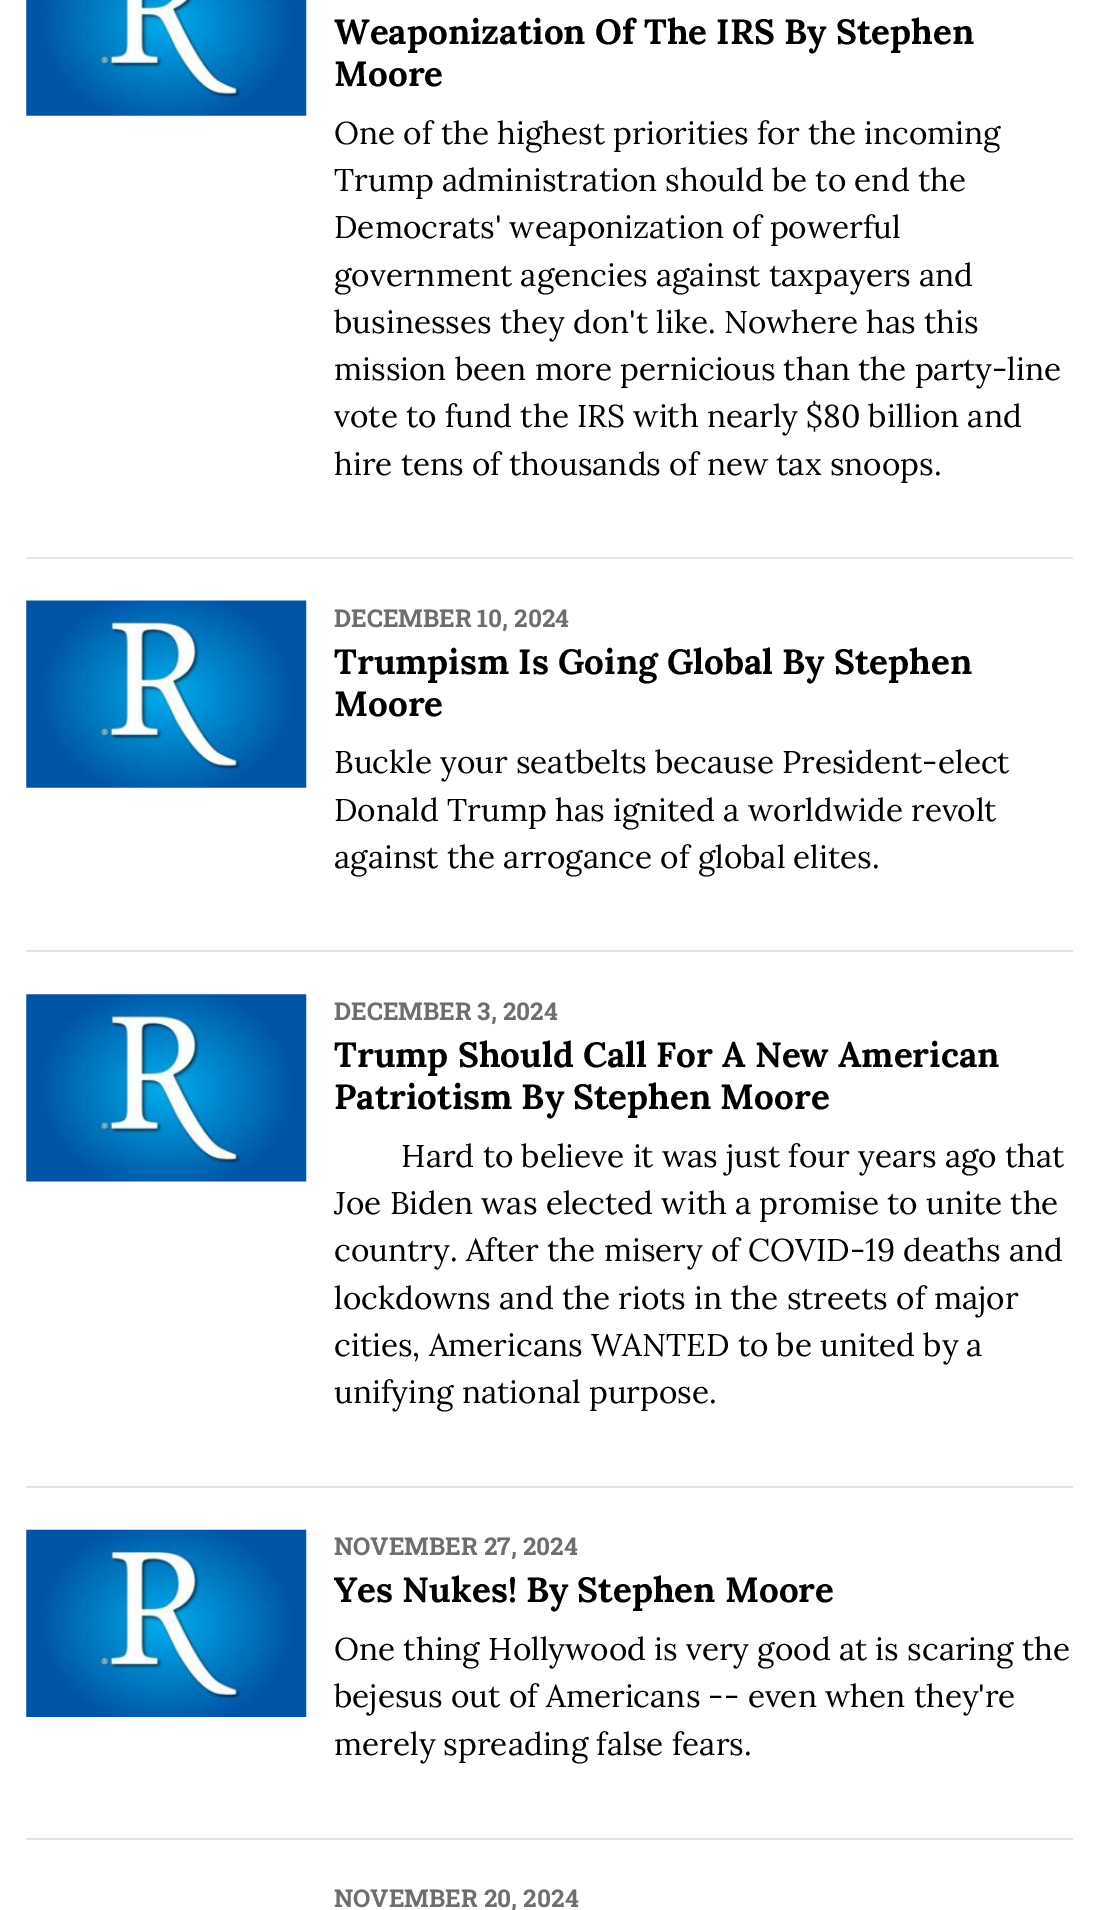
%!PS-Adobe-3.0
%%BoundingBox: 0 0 1098 1910
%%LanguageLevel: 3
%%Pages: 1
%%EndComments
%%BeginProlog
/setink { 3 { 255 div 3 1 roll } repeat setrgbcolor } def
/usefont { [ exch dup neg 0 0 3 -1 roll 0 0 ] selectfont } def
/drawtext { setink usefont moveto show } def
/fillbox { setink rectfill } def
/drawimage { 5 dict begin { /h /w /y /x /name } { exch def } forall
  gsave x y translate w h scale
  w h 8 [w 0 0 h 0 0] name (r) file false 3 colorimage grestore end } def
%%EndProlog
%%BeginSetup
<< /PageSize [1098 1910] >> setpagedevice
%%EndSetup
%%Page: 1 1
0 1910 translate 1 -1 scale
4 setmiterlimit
0 0 1098 1910 255 255 255 fillbox
26 557 1047 2 223 229 232 fillbox
(assets/img1.rgb) 26 0 281 116 drawimage
(Weaponization Of The IRS By Stephen) 334 44 /Lora-Bold 35 0 0 0 drawtext
(Moore) 334 86 /Lora-Bold 35 0 0 0 drawtext
(One of the highest priorities for the incoming) 334 144 /Lora-Regular 31.5 0 0 0 drawtext
(Trump administration should be to end the) 334 191 /Lora-Regular 31.5 0 0 0 drawtext
(Democrats' weaponization of powerful) 334 238 /Lora-Regular 31.5 0 0 0 drawtext
(government agencies against taxpayers and) 334 286 /Lora-Regular 31.5 0 0 0 drawtext
(businesses they don't like. Nowhere has this) 334 333 /Lora-Regular 31.5 0 0 0 drawtext
(mission been more pernicious than the party-line) 334 380 /Lora-Regular 31.5 0 0 0 drawtext
(vote to fund the IRS with nearly $80 billion and) 334 427 /Lora-Regular 31.5 0 0 0 drawtext
(hire tens of thousands of new tax snoops.) 334 475 /Lora-Regular 31.5 0 0 0 drawtext
26 950 1047 2 223 229 232 fillbox
(assets/img2.rgb) 26 600 281 188 drawimage
(DECEMBER 10, 2024) 334 627 /RobotoSlab-Bold 24.5 110 110 110 drawtext
(Trumpism Is Going Global By Stephen) 334 674 /Lora-Bold 35 0 0 0 drawtext
(Moore) 334 716 /Lora-Bold 35 0 0 0 drawtext
(Buckle your seatbelts because President-elect) 334 773 /Lora-Regular 31.5 0 0 0 drawtext
(Donald Trump has ignited a worldwide revolt) 334 821 /Lora-Regular 31.5 0 0 0 drawtext
(against the arrogance of global elites.) 334 868 /Lora-Regular 31.5 0 0 0 drawtext
26 1486 1047 2 223 229 232 fillbox
(assets/img3.rgb) 26 994 281 188 drawimage
(DECEMBER 3, 2024) 334 1020 /RobotoSlab-Bold 24.5 110 110 110 drawtext
(Trump Should Call For A New American) 334 1067 /Lora-Bold 35 0 0 0 drawtext
(Patriotism By Stephen Moore) 334 1109 /Lora-Bold 35 0 0 0 drawtext
(Hard to believe it was just four years ago that) 401 1167 /Lora-Regular 31.5 0 0 0 drawtext
(Joe Biden was elected with a promise to unite the) 334 1214 /Lora-Regular 31.5 0 0 0 drawtext
(country. After the misery of COVID-19 deaths and) 334 1261 /Lora-Regular 31.5 0 0 0 drawtext
(lockdowns and the riots in the streets of major) 334 1309 /Lora-Regular 31.5 0 0 0 drawtext
(cities, Americans WANTED to be united by a) 334 1356 /Lora-Regular 31.5 0 0 0 drawtext
(unifying national purpose.) 334 1403 /Lora-Regular 31.5 0 0 0 drawtext
26 1838 1047 2 223 229 232 fillbox
(assets/img4.rgb) 26 1529 281 188 drawimage
(NOVEMBER 27, 2024) 334 1555 /RobotoSlab-Bold 24.5 110 110 110 drawtext
(Yes Nukes! By Stephen Moore) 334 1602 /Lora-Bold 35 0 0 0 drawtext
(One thing Hollywood is very good at is scaring the) 334 1660 /Lora-Regular 31.5 0 0 0 drawtext
(bejesus out of Americans -- even when they're) 334 1707 /Lora-Regular 31.5 0 0 0 drawtext
(merely spreading false fears.) 334 1755 /Lora-Regular 31.5 0 0 0 drawtext
(NOVEMBER 20, 2024) 334 1907 /RobotoSlab-Bold 24.5 110 110 110 drawtext
showpage
%%EOF
